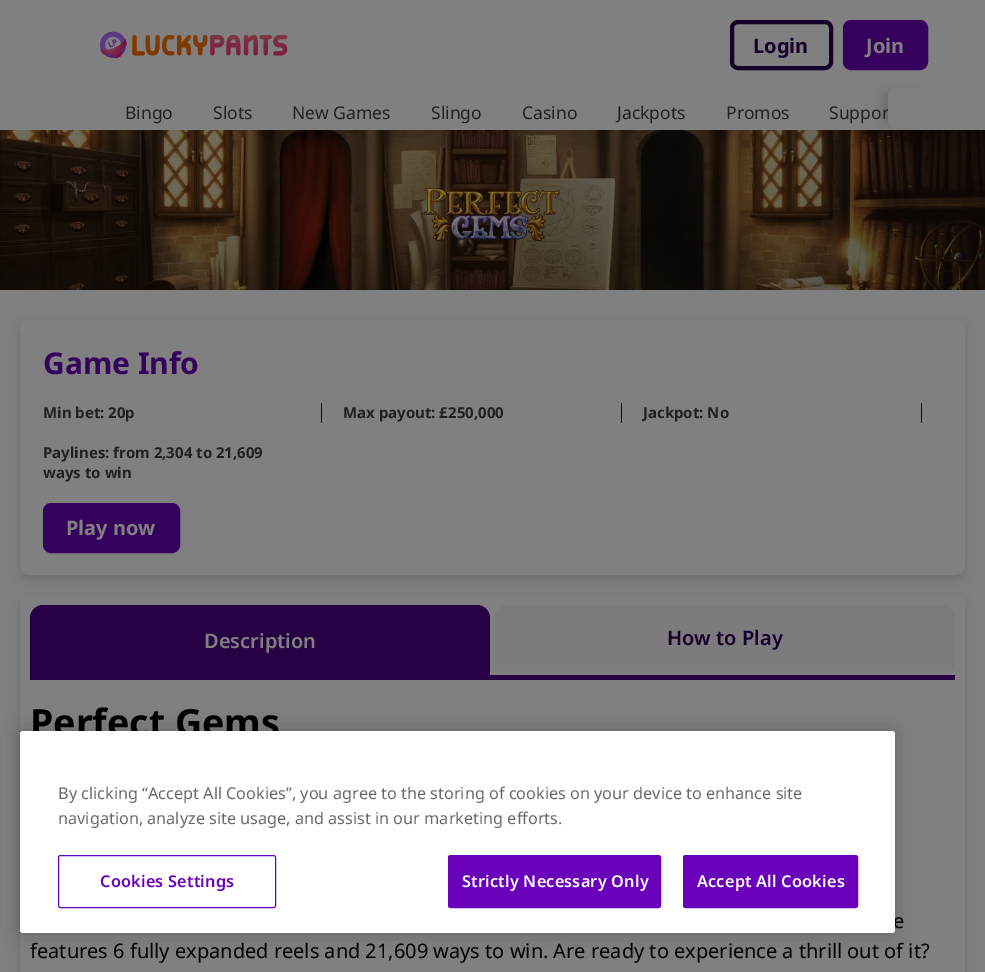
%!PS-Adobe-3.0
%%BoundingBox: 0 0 985 972
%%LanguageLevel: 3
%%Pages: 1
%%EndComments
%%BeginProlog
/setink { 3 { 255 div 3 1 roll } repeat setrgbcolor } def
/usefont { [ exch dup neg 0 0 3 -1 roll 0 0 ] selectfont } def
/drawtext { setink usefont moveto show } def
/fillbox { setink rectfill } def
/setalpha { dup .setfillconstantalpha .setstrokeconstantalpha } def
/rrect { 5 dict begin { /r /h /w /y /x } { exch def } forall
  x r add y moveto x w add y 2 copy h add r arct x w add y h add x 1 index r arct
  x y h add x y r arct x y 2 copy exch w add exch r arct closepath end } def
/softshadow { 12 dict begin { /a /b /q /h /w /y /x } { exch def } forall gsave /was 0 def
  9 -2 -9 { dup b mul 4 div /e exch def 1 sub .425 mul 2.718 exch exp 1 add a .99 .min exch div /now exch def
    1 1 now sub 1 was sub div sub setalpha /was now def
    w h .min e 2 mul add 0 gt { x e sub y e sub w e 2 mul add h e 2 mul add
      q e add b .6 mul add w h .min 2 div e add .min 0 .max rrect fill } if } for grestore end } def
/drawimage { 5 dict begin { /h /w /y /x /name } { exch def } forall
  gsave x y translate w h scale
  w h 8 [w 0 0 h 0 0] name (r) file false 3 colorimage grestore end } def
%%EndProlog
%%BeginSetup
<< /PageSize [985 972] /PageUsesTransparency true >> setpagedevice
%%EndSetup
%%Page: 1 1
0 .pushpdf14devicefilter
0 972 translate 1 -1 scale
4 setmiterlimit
0 0 985 972 128 128 128 fillbox
(assets/img1.rgb) 100 31 188 28 drawimage
22 0 41 setink
4 setlinewidth
732 22 99 46 6 rrect stroke
(Login) 753 53 /NotoSans-Bold 20 22 0 41 drawtext
53 1 93 setink
845 22 81 46 6 rrect gsave fill grestore
stroke
(Join) 866 53 /NotoSans-Bold 20 128 128 128 drawtext
(Bingo) 125 119 /NotoSans-Regular 17.5 31 33 35 drawtext
(Slots) 213 119 /NotoSans-Regular 17.5 31 33 35 drawtext
(New Games) 292 119 /NotoSans-Regular 17.5 31 33 35 drawtext
(Slingo) 431 119 /NotoSans-Regular 17.5 31 33 35 drawtext
(Casino) 522 119 /NotoSans-Regular 17.5 31 33 35 drawtext
(Jackpots) 617 119 /NotoSans-Regular 17.5 31 33 35 drawtext
(Promos) 726 119 /NotoSans-Regular 17.5 31 33 35 drawtext
(assets/img2.rgb) 0 130 985 160 drawimage
0 0 0 setink
884 94 27 27 1 6 0.2 softshadow
(Suppor) 829 119 /NotoSans-Regular 17.5 31 33 35 drawtext
128 128 128 setink
896 88 moveto 928 88 lineto 928 128 lineto 896 128 lineto 891.5 128 888 124.5 888 120 curveto 888 96 lineto 888 91.5 891.5 88 896 88 curveto closepath fill
(assets/img3.rgb) 423 186 137 56 drawimage
0 0 0 setink
20 325 945 255 10 6 0.15 softshadow
128 128 128 setink
21.5 321.5 942 252 8.5 rrect gsave fill grestore
3 setlinewidth
stroke
(Game Info) 43 374 /NotoSans-Bold 30 53 1 93 drawtext
321 403 1 20 22 0 41 fillbox
(Min bet: 20p) 43 418 /NotoSans-Bold 15 31 33 35 drawtext
621 403 1 20 22 0 41 fillbox
(Max payout: £250,000) 343 418 /NotoSans-Bold 15 31 33 35 drawtext
921 403 1 20 22 0 41 fillbox
(Jackpot: No) 643 418 /NotoSans-Bold 15 31 33 35 drawtext
(Paylines: from 2,304 to 21,609) 43 458 /NotoSans-Bold 15 31 33 35 drawtext
(ways to win) 43 478 /NotoSans-Bold 15 31 33 35 drawtext
53 1 93 setink
45 505 133 46 6 rrect gsave fill grestore
4 setlinewidth
stroke
(Play now) 66 535 /NotoSans-Bold 20 128 128 128 drawtext
0 0 0 setink
20 600 945 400 10 6 0.15 softshadow
128 128 128 setink
20 595 945 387 10 rrect fill
30 675 925 5 39 1 68 fillbox
43 605 moveto 477 605 lineto 484 605 490 611 490 618 curveto 490 675 lineto 30 675 lineto 30 618 lineto 30 611 36 605 43 605 curveto closepath fill
(Description) 204 648 /NotoSans-SemiBold 20 128 128 128 drawtext
126 123 126 setink
508 605 moveto 942 605 lineto 949 605 955 611 955 618 curveto 955 670 lineto 495 670 lineto 495 618 lineto 495 611 501 605 508 605 curveto closepath fill
(How to Play) 667 645 /NotoSans-SemiBold 20 22 0 41 drawtext
(Perfect Gems) 30 736 /NotoSans-Bold 37.5 0 0 0 drawtext
(e) 893 928 /NotoSans-Regular 20 0 0 0 drawtext
(features 6 fully expanded reels and 21,609 ways to win. Are ready to experience a thrill out of it?) 30 958 /NotoSans-Regular 20 0 0 0 drawtext
20 731 875 202 3 11 0.2 softshadow
255 255 255 setink
20 731 875 202 3 rrect fill
(By clicking “Accept All Cookies”, you agree to the storing of cookies on your device to enhance site) 58 799 /NotoSans-Regular 16.25 105 105 105 drawtext
(navigation, analyze site usage, and assist in our marketing efforts.) 58 824 /NotoSans-Regular 16.25 105 105 105 drawtext
105 2 186 setink
1 setlinewidth
58.5 855.5 217 52 2 rrect stroke
/NotoSans-SemiBold 16.25 usefont
100 887 moveto 0.2 0 (Cookies Settings) ashow
448.5 855.5 212 52 2 rrect gsave fill grestore
stroke
255 255 255 setink
462 887 moveto 0.2 0 (Strictly Necessary Only) ashow
105 2 186 setink
683.5 855.5 174 52 2 rrect gsave fill grestore
stroke
255 255 255 setink
697 887 moveto 0.2 0 (Accept All Cookies) ashow
.poppdf14devicefilter showpage
%%EOF
